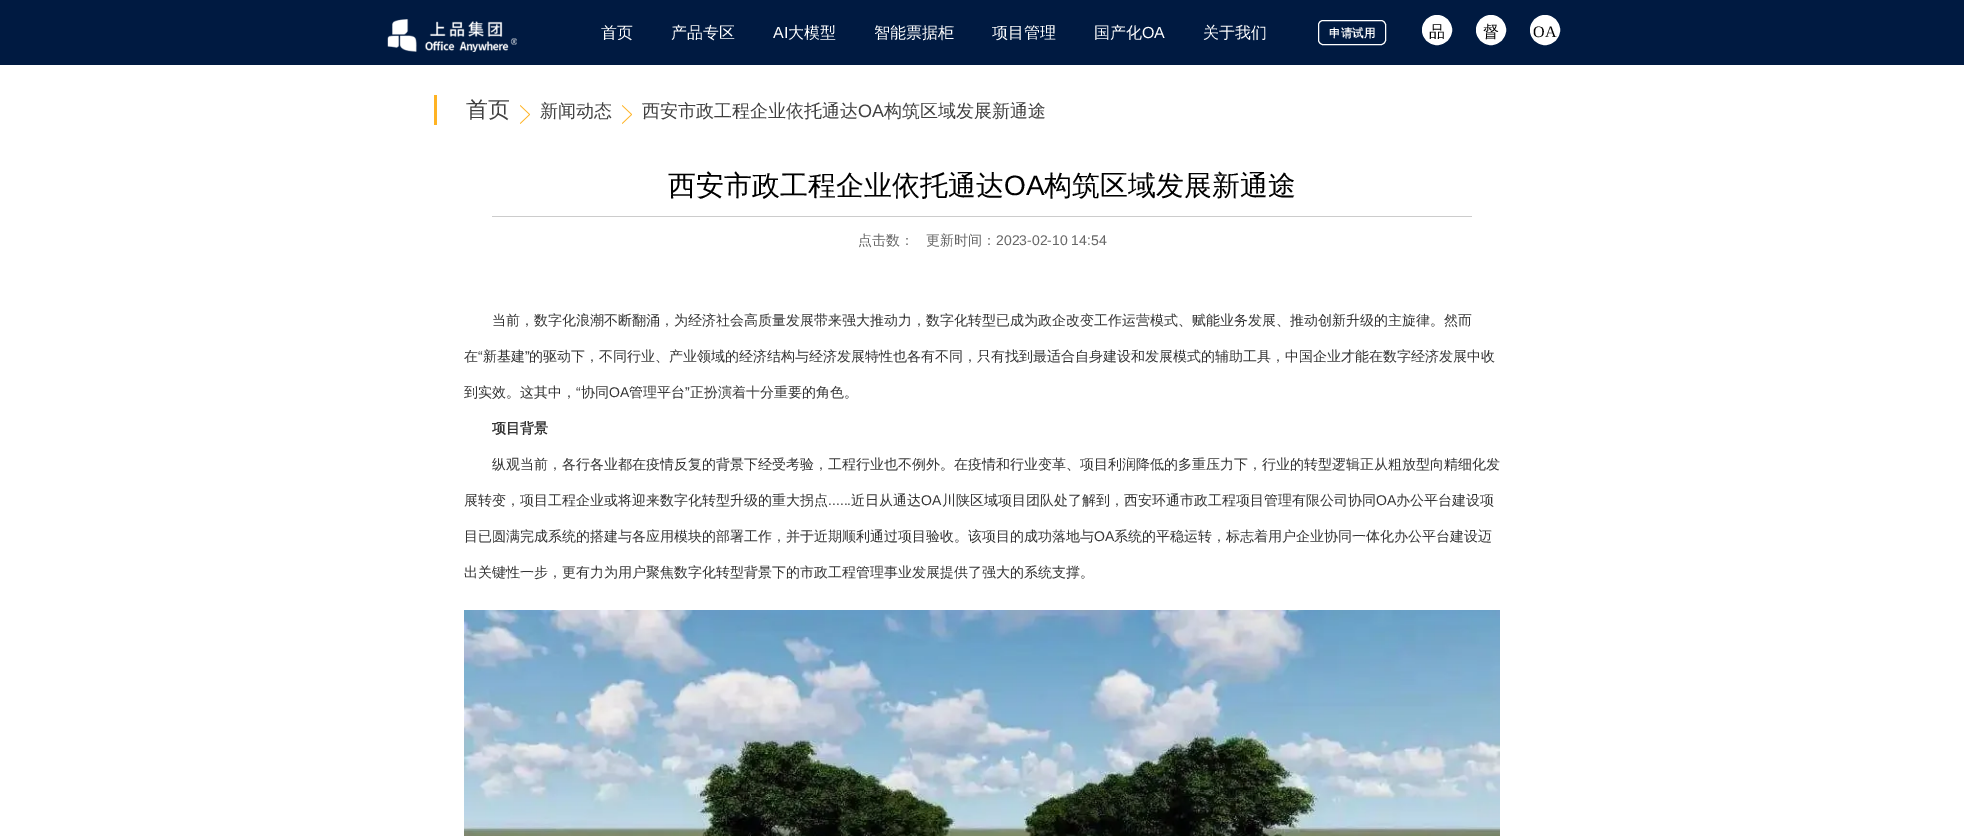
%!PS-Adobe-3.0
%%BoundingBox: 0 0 1964 836
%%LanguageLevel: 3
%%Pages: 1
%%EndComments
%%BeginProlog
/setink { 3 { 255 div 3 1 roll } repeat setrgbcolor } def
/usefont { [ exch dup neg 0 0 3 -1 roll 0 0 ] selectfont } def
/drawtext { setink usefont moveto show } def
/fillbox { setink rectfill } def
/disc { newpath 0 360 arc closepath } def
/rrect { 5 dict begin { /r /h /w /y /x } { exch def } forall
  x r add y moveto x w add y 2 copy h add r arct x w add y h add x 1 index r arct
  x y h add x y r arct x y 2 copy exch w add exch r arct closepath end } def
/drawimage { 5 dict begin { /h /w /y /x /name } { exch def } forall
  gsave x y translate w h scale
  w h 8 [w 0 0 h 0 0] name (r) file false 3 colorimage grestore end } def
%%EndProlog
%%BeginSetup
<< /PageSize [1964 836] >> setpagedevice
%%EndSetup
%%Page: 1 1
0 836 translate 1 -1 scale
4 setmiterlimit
0 0 1964 836 255 255 255 fillbox
0 0 1964 65 0 26 65 fillbox
(assets/img1.rgb) 387 19 130 33 drawimage
(首页) 601 38 /WenQuanYiZenHei-Medium 16 255 255 255 drawtext
(产品专区) 671 38 /WenQuanYiZenHei-Medium 16 255 255 255 drawtext
(AI) 773 38 /LiberationSans-Regular 16 255 255 255 drawtext
(大模型) 788 38 /WenQuanYiZenHei-Medium 16 255 255 255 drawtext
(智能票据柜) 874 38 /WenQuanYiZenHei-Medium 16 255 255 255 drawtext
(项目管理) 992 38 /WenQuanYiZenHei-Medium 16 255 255 255 drawtext
(国产化) 1094 38 /WenQuanYiZenHei-Medium 16 255 255 255 drawtext
(OA) 1142 38 /LiberationSans-Regular 16 255 255 255 drawtext
(关于我们) 1203 38 /WenQuanYiZenHei-Medium 16 255 255 255 drawtext
1318.5 20.5 67 24 4.5 rrect stroke
(申请试用) 1329 37 /WenQuanYiZenHei-Bold 11.5 255 255 255 drawtext
1437 30 14.5 disc gsave fill grestore
stroke
(品) 1429 37 /WenQuanYiZenHei-Medium 16 0 0 0 drawtext
255 255 255 setink
1491 30 14.5 disc gsave fill grestore
stroke
(督) 1483 37 /WenQuanYiZenHei-Medium 16 0 0 0 drawtext
255 255 255 setink
1545 30 14.5 disc gsave fill grestore
stroke
(OA) 1533 37 /LiberationSerif-Regular 16 0 0 0 drawtext
434 95 3 30 255 179 35 fillbox
(首页) 466 117 /WenQuanYiZenHei-Medium 22 64 64 64 drawtext
(assets/img2.rgb) 520 105 10 19 drawimage
(新闻动态) 540 117 /WenQuanYiZenHei-Medium 18 64 64 64 drawtext
(assets/img2.rgb) 622 105 10 19 drawimage
(西安市政工程企业依托通达) 642 117 /WenQuanYiZenHei-Medium 18 64 64 64 drawtext
(OA) 858 117 /LiberationSans-Regular 18 64 64 64 drawtext
(构筑区域发展新通途) 884 117 /WenQuanYiZenHei-Medium 18 64 64 64 drawtext
492 216 980 1 204 204 204 fillbox
(西安市政工程企业依托通达) 668 195 /WenQuanYiZenHei-Medium 28 0 0 0 drawtext
(OA) 1004 195 /LiberationSans-Regular 28 0 0 0 drawtext
(构筑区域发展新通途) 1044 195 /WenQuanYiZenHei-Medium 28 0 0 0 drawtext
(点击数：) 858 245 /WenQuanYiZenHei-Medium 14 102 102 102 drawtext
(更新时间：) 926 245 /WenQuanYiZenHei-Medium 14 102 102 102 drawtext
(2023-02-10 14:54) 996 245 /LiberationSans-Regular 14 102 102 102 drawtext
(当前，数字化浪潮不断翻涌，为经济社会高质量发展带来强大推动力，数字化转型已成为政企改变工作运营模式、赋能业务发展、推动创新升级的主旋律。然而) 492 325 /WenQuanYiZenHei-Medium 14 51 51 51 drawtext
(在) 464 361 /WenQuanYiZenHei-Medium 14 51 51 51 drawtext
(“) 478 361 /LiberationSans-Regular 14 51 51 51 drawtext
(新基建) 483 361 /WenQuanYiZenHei-Medium 14 51 51 51 drawtext
(”) 525 361 /LiberationSans-Regular 14 51 51 51 drawtext
(的驱动下，不同行业、产业领域的经济结构与经济发展特性也各有不同，只有找到最适合自身建设和发展模式的辅助工具，中国企业才能在数字经济发展中收) 529 361 /WenQuanYiZenHei-Medium 14 51 51 51 drawtext
(到实效。这其中，) 464 397 /WenQuanYiZenHei-Medium 14 51 51 51 drawtext
(“) 576 397 /LiberationSans-Regular 14 51 51 51 drawtext
(协同) 581 397 /WenQuanYiZenHei-Medium 14 51 51 51 drawtext
(OA) 609 397 /LiberationSans-Regular 14 51 51 51 drawtext
(管理平台) 629 397 /WenQuanYiZenHei-Medium 14 51 51 51 drawtext
(”) 685 397 /LiberationSans-Regular 14 51 51 51 drawtext
(正扮演着十分重要的角色。) 690 397 /WenQuanYiZenHei-Medium 14 51 51 51 drawtext
(项目背景) 492 433 /WenQuanYiZenHei-Bold 14 51 51 51 drawtext
(纵观当前，各行各业都在疫情反复的背景下经受考验，工程行业也不例外。在疫情和行业变革、项目利润降低的多重压力下，行业的转型逻辑正从粗放型向精细化发) 492 469 /WenQuanYiZenHei-Medium 14 51 51 51 drawtext
(展转变，项目工程企业或将迎来数字化转型升级的重大拐点) 464 505 /WenQuanYiZenHei-Medium 14 51 51 51 drawtext
(......) 828 505 /LiberationSans-Regular 14 51 51 51 drawtext
(近日从通达) 851 505 /WenQuanYiZenHei-Medium 14 51 51 51 drawtext
(OA) 921 505 /LiberationSans-Regular 14 51 51 51 drawtext
(川陕区域项目团队处了解到，西安环通市政工程项目管理有限公司协同) 942 505 /WenQuanYiZenHei-Medium 14 51 51 51 drawtext
(OA) 1376 505 /LiberationSans-Regular 14 51 51 51 drawtext
(办公平台建设项) 1396 505 /WenQuanYiZenHei-Medium 14 51 51 51 drawtext
(目已圆满完成系统的搭建与各应用模块的部署工作，并于近期顺利通过项目验收。该项目的成功落地与) 464 541 /WenQuanYiZenHei-Medium 14 51 51 51 drawtext
(OA) 1094 541 /LiberationSans-Regular 14 51 51 51 drawtext
(系统的平稳运转，标志着用户企业协同一体化办公平台建设迈) 1114 541 /WenQuanYiZenHei-Medium 14 51 51 51 drawtext
(出关键性一步，更有力为用户聚焦数字化转型背景下的市政工程管理事业发展提供了强大的系统支撑。) 464 577 /WenQuanYiZenHei-Medium 14 51 51 51 drawtext
(assets/img3.rgb) 464 610 1036 226 drawimage
showpage
%%EOF
